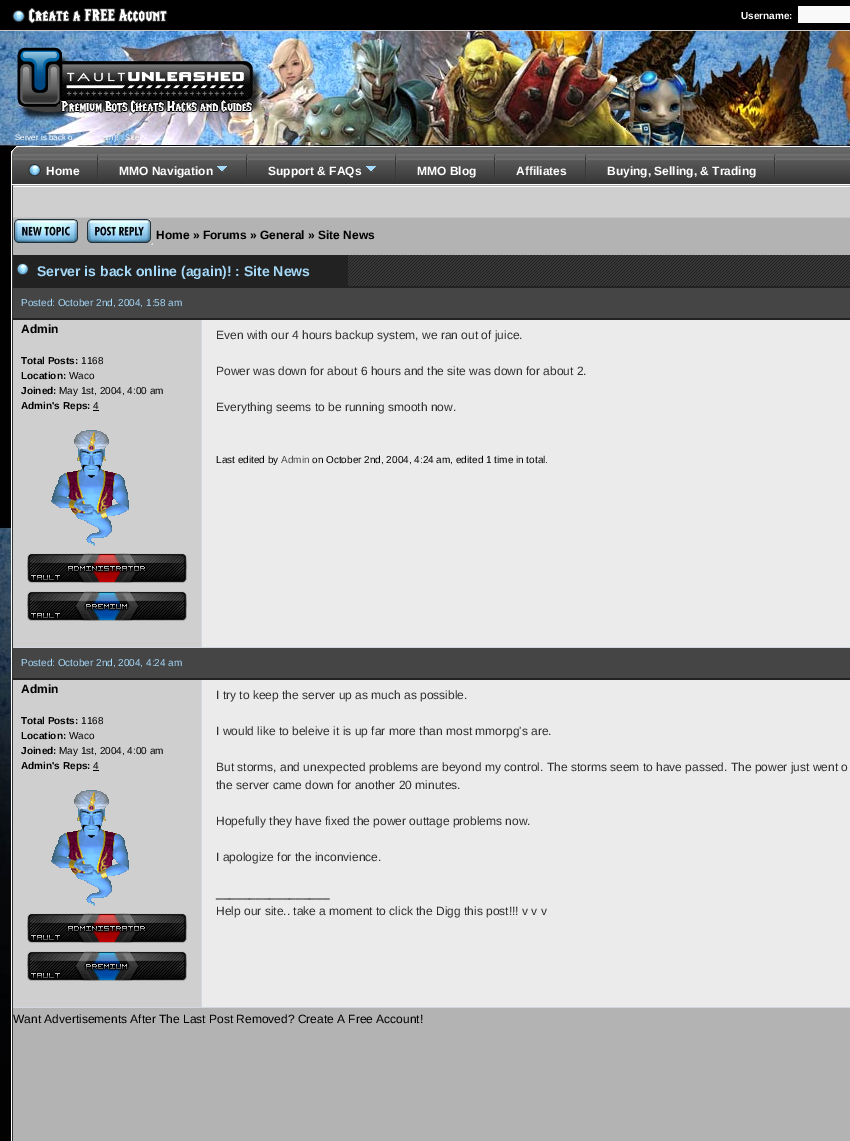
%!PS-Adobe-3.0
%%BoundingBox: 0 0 850 1141
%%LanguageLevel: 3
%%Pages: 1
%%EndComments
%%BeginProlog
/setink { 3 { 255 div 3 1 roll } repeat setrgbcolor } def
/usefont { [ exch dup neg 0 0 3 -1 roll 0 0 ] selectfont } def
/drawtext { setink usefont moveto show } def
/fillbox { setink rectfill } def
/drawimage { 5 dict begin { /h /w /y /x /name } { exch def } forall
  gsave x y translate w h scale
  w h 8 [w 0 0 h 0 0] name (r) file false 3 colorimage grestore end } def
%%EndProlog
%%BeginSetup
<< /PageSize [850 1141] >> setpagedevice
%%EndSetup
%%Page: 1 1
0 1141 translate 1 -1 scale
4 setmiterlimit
0 0 850 1141 255 255 255 fillbox
(assets/img1.rgb) 0 31 850 1110 drawimage
0 0 850 30 0 0 0 fillbox
0 30 850 1 204 204 204 fillbox
(assets/img2.rgb) 12 7 156 17 drawimage
(Username:) 741 19 /LiberationSans-Bold 10 255 255 255 drawtext
798 6 52 17 249 249 249 fillbox
(assets/img3.rgb) 17 31 246 90 drawimage
(Server is back o) 15 140 /LiberationSans-Regular 8 255 255 255 drawtext
(ain\)! : Site N) 103 140 /LiberationSans-Regular 8 255 255 255 drawtext
(s) 157 140 /LiberationSans-Regular 8 255 255 255 drawtext
(assets/img4.rgb) 11 146 12 41 drawimage
(assets/img5.rgb) 23 146 827 41 drawimage
(assets/img6.rgb) 97 154 2 26 drawimage
(assets/img7.rgb) 28 164 13 13 drawimage
(Home) 46 175 /LiberationSans-Bold 12 255 255 255 drawtext
(assets/img6.rgb) 246 154 2 26 drawimage
(assets/img8.rgb) 216 166 11 6 drawimage
(MMO Navigation) 119 175 /LiberationSans-Bold 12 255 255 255 drawtext
(assets/img6.rgb) 395 154 2 26 drawimage
(assets/img8.rgb) 365 166 11 6 drawimage
(Support & FAQs) 268 175 /LiberationSans-Bold 12 255 255 255 drawtext
(assets/img6.rgb) 494 154 2 26 drawimage
(MMO Blog) 417 175 /LiberationSans-Bold 12 255 255 255 drawtext
(assets/img6.rgb) 585 154 2 26 drawimage
(Affiliates) 516 175 /LiberationSans-Bold 12 255 255 255 drawtext
(assets/img6.rgb) 774 154 2 26 drawimage
(Buying, Selling, & Trading) 607 175 /LiberationSans-Bold 12 255 255 255 drawtext
(assets/img9.rgb) 11 187 2 954 drawimage
13 218 837 923 179 179 179 fillbox
13 187 837 30 207 207 207 fillbox
13 217 837 1 195 196 197 fillbox
(assets/img10.rgb) 14 219 64 24 drawimage
(assets/img11.rgb) 87 219 66 26 drawimage
(Home » Forums » General » Site News) 156 239 /LiberationSans-Bold 12 0 0 0 drawtext
13 286 837 2 34 34 34 fillbox
13 255 335 31 34 34 34 fillbox
(assets/img12.rgb) 16 263 13 12 drawimage
(Server is back online \(again\)! : Site News) 37 276 /LiberationSans-Bold 14 165 218 250 drawtext
(assets/img13.rgb) 348 255 502 31 drawimage
13 318 837 2 34 34 34 fillbox
13 288 837 30 69 69 70 fillbox
(Posted: October 2nd, 2004, 1:58 am) 21 306 /LiberationSans-Regular 10 165 218 250 drawtext
13 320 188 327 207 207 207 fillbox
201 320 1 328 209 215 220 fillbox
(Admin) 21 333 /LiberationSans-Bold 12 0 0 0 drawtext
(Total Posts:) 21 364 /LiberationSans-Bold 10 0 0 0 drawtext
(1168) 81 364 /LiberationSans-Regular 10 0 0 0 drawtext
(Location:) 21 379 /LiberationSans-Bold 10 0 0 0 drawtext
(Waco) 69 379 /LiberationSans-Regular 10 0 0 0 drawtext
(Joined:) 21 394 /LiberationSans-Bold 10 0 0 0 drawtext
(May 1st, 2004, 4:00 am) 59 394 /LiberationSans-Regular 10 0 0 0 drawtext
(Admin's Reps:) 21 409 /LiberationSans-Bold 10 0 0 0 drawtext
(4) 93 409 /LiberationSans-Regular 10 0 0 0 drawtext
93 410 6 1 0 0 0 fillbox
(assets/img14.rgb) 51 430 78 116 drawimage
(assets/img15.rgb) 27 553 160 30 drawimage
(assets/img16.rgb) 27 591 160 30 drawimage
202 320 648 327 235 235 235 fillbox
(Even with our 4 hours backup system, we ran out of juice.) 216 339 /LiberationSans-Regular 12 48 48 48 drawtext
(Power was down for about 6 hours and the site was down for about 2.) 216 375 /LiberationSans-Regular 12 48 48 48 drawtext
(Everything seems to be running smooth now.) 216 411 /LiberationSans-Regular 12 48 48 48 drawtext
(Last edited by) 216 463 /LiberationSans-Regular 10 0 0 0 drawtext
(Admin) 281 463 /LiberationSans-Regular 10 78 78 78 drawtext
(on October 2nd, 2004, 4:24 am, edited 1 time in total.) 312 463 /LiberationSans-Regular 10 0 0 0 drawtext
13 647 837 1 209 215 220 fillbox
13 678 837 2 34 34 34 fillbox
13 648 837 30 69 69 70 fillbox
(Posted: October 2nd, 2004, 4:24 am) 21 666 /LiberationSans-Regular 10 165 218 250 drawtext
13 680 188 327 207 207 207 fillbox
201 680 1 328 209 215 220 fillbox
(Admin) 21 693 /LiberationSans-Bold 12 0 0 0 drawtext
(Total Posts:) 21 724 /LiberationSans-Bold 10 0 0 0 drawtext
(1168) 81 724 /LiberationSans-Regular 10 0 0 0 drawtext
(Location:) 21 739 /LiberationSans-Bold 10 0 0 0 drawtext
(Waco) 69 739 /LiberationSans-Regular 10 0 0 0 drawtext
(Joined:) 21 754 /LiberationSans-Bold 10 0 0 0 drawtext
(May 1st, 2004, 4:00 am) 59 754 /LiberationSans-Regular 10 0 0 0 drawtext
(Admin's Reps:) 21 769 /LiberationSans-Bold 10 0 0 0 drawtext
(4) 93 769 /LiberationSans-Regular 10 0 0 0 drawtext
93 770 6 1 0 0 0 fillbox
(assets/img14.rgb) 51 790 78 116 drawimage
(assets/img15.rgb) 27 913 160 30 drawimage
(assets/img16.rgb) 27 951 160 30 drawimage
202 680 648 327 235 235 235 fillbox
(I try to keep the server up as much as possible.) 216 699 /LiberationSans-Regular 12 48 48 48 drawtext
(I would like to beleive it is up far more than most mmorpg's are.) 216 735 /LiberationSans-Regular 12 48 48 48 drawtext
(But storms, and unexpected problems are beyond my control. The storms seem to have passed. The power just went o) 216 771 /LiberationSans-Regular 12 48 48 48 drawtext
(the server came down for another 20 minutes.) 216 789 /LiberationSans-Regular 12 48 48 48 drawtext
(Hopefully they have fixed the power outtage problems now.) 216 825 /LiberationSans-Regular 12 48 48 48 drawtext
(I apologize for the inconvience.) 216 861 /LiberationSans-Regular 12 48 48 48 drawtext
(_________________) 216 897 /LiberationSans-Regular 12 48 48 48 drawtext
(Help our site.. take a moment to click the Digg this post!!! v v v) 216 915 /LiberationSans-Regular 12 48 48 48 drawtext
13 1007 837 1 209 215 220 fillbox
(Want Advertisements After The Last Post Removed? Create A Free Account!) 13 1023 /LiberationSans-Regular 12 0 0 0 drawtext
showpage
%%EOF
